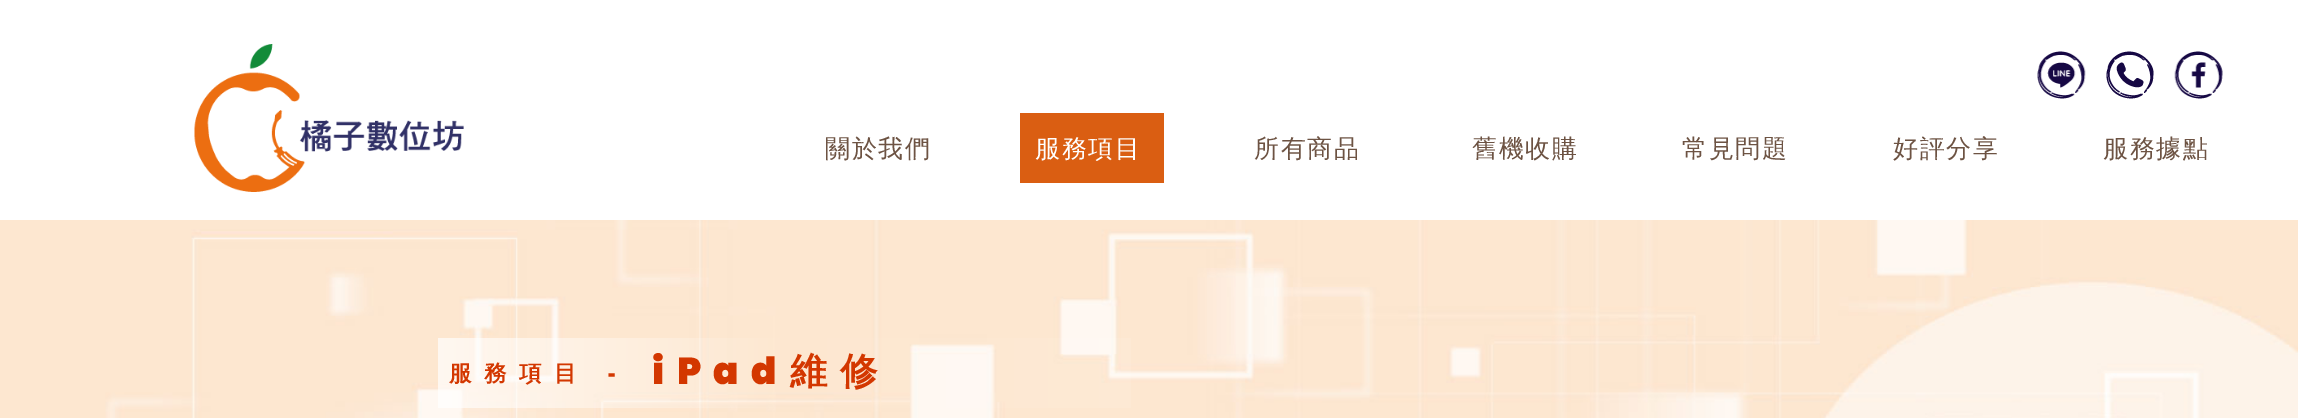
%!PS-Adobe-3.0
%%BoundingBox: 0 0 2298 418
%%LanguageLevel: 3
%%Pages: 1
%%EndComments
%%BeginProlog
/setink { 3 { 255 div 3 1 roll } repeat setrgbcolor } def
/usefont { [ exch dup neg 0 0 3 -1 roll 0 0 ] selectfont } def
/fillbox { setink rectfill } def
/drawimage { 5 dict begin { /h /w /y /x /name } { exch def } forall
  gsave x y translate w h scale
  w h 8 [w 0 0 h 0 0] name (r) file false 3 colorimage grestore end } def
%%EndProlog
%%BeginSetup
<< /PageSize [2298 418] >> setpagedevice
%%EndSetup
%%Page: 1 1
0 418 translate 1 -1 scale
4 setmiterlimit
0 0 2298 418 255 255 255 fillbox
(assets/img1.rgb) 194 44 270 148 drawimage
(assets/img2.rgb) 2037 51 49 48 drawimage
(assets/img3.rgb) 2106 51 48 48 drawimage
(assets/img4.rgb) 2174 51 49 48 drawimage
/WenQuanYiZenHei-Medium 25 usefont
109 83 67 setink
825 157 moveto 1.5 0 (關於我們) ashow
1020 113 144 70 218 94 18 fillbox
255 255 255 setink
1035 157 moveto 1.5 0 (服務項目) ashow
109 83 67 setink
1254 157 moveto 1.5 0 (所有商品) ashow
1472 157 moveto 1.5 0 (舊機收購) ashow
1682 157 moveto 1.5 0 (常見問題) ashow
1893 157 moveto 1.5 0 (好評分享) ashow
2103 157 moveto 1.5 0 (服務據點) ashow
(assets/img5.rgb) 0 220 2298 198 drawimage
/WenQuanYiZenHei-Bold 22.5 usefont
211 55 0 setink
449 381 moveto 12.5 0 (服務項目) ashow
/OpenSans-ExtraBold 22.5 usefont
608 381 moveto 12.5 0 (-) ashow
/Poppins-Black 37.5 usefont
652 384 moveto 12.5 0 (iPad) ashow
/WenQuanYiZenHei-Bold 37.5 usefont
790 384 moveto 12.5 0 (維修) ashow
showpage
%%EOF
